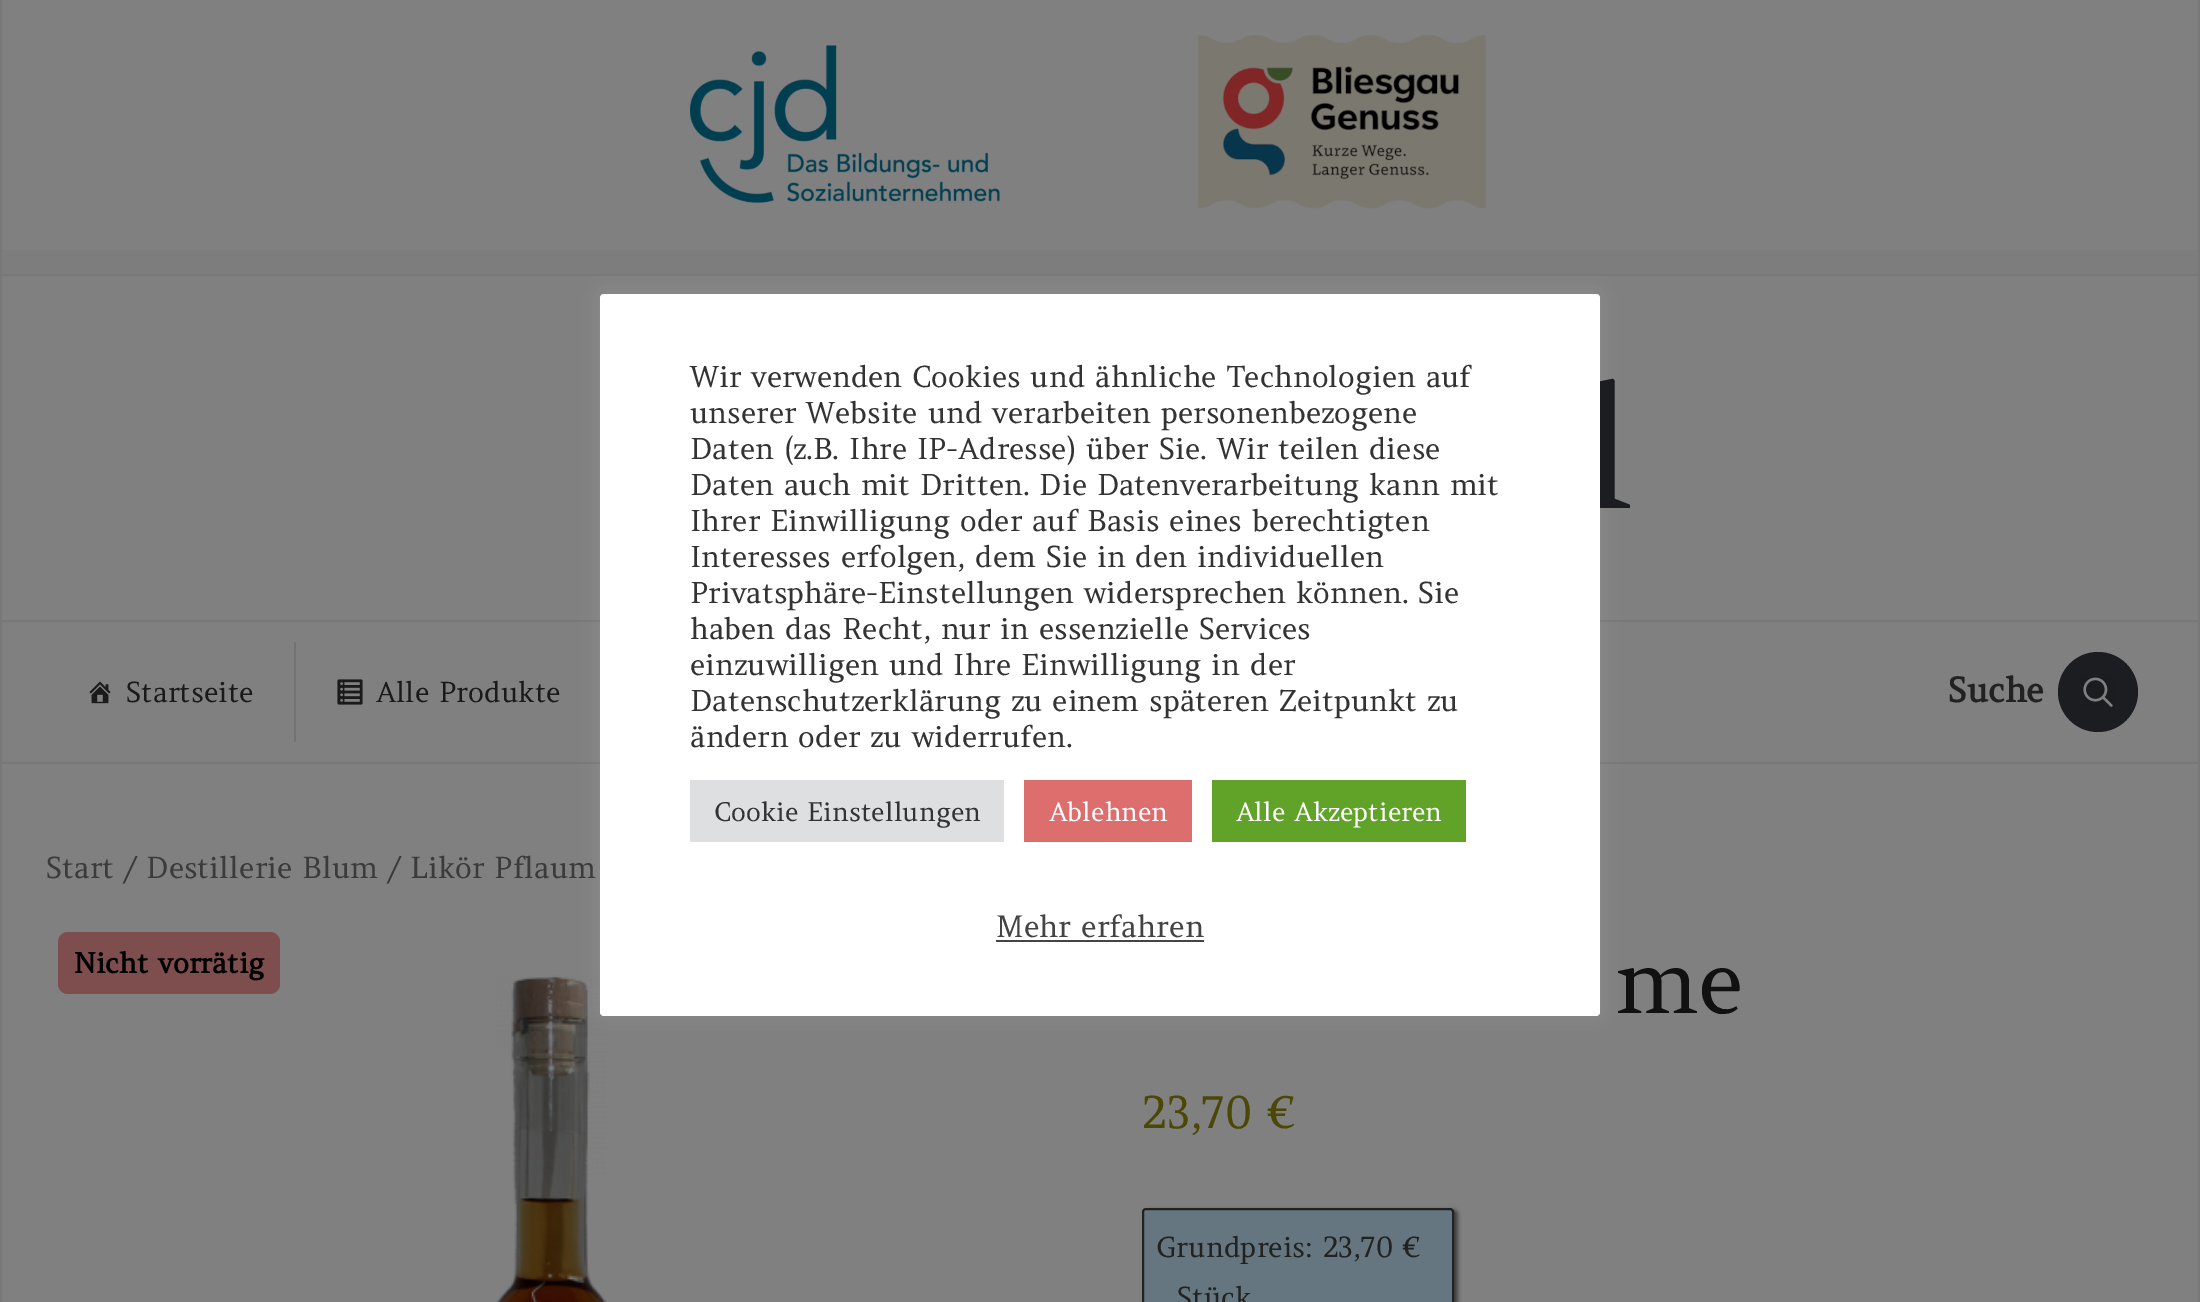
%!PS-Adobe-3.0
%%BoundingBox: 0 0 2200 1302
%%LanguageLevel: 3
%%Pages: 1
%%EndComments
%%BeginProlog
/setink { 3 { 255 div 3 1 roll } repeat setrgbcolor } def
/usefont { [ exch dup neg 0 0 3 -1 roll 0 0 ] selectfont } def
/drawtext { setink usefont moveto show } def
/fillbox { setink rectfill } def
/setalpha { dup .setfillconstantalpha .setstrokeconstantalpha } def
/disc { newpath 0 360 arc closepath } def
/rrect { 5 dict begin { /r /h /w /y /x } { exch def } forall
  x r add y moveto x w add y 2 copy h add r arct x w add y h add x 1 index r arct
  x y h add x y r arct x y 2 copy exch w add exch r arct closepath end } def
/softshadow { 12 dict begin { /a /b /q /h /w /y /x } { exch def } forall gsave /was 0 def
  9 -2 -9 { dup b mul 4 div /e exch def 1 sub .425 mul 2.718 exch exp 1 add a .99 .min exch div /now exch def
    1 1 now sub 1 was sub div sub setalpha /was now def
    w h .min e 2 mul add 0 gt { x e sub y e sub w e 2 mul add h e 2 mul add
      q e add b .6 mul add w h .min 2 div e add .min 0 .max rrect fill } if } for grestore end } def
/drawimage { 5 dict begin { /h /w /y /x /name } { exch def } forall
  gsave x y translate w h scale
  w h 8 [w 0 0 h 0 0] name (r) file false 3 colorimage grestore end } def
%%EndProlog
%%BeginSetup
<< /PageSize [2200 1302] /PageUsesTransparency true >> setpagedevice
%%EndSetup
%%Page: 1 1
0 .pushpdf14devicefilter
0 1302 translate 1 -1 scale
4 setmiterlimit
0 0 2200 1302 128 128 128 fillbox
2198 0 2 1302 120 120 120 fillbox
0 0 2 1302 120 120 120 fillbox
(assets/img1.rgb) 690 35 796 174 drawimage
2 250 2196 24 125 125 125 fillbox
2 274 2196 2 120 120 120 fillbox
2 620 2196 2 120 120 120 fillbox
2 762 2196 2 120 120 120 fillbox
(assets/img5.rgb) 496 975 111 327 drawimage
172 171 171 setink
600 292 1000 722 4 10 0.3 softshadow
/Amethysta-Regular 170 usefont
27 29 32 setink
1579 508 moveto -2 0 (l) ashow
255 255 255 setink
600 294 1000 722 4 rrect fill
(Wir verwenden Cookies und ähnliche Technologien auf) 690 387 /Amethysta-Regular 29.3 51 51 51 drawtext
(unserer Website und verarbeiten personenbezogene) 690 423 /Amethysta-Regular 29.3 51 51 51 drawtext
(Daten \(z.B. Ihre IP-Adresse\) über Sie. Wir teilen diese) 690 459 /Amethysta-Regular 29.3 51 51 51 drawtext
(Daten auch mit Dritten. Die Datenverarbeitung kann mit) 690 495 /Amethysta-Regular 29.3 51 51 51 drawtext
(Ihrer Einwilligung oder auf Basis eines berechtigten) 690 531 /Amethysta-Regular 29.3 51 51 51 drawtext
(Interesses erfolgen, dem Sie in den individuellen) 690 567 /Amethysta-Regular 29.3 51 51 51 drawtext
(Privatsphäre-Einstellungen widersprechen können. Sie) 690 603 /Amethysta-Regular 29.3 51 51 51 drawtext
(haben das Recht, nur in essenzielle Services) 690 639 /Amethysta-Regular 29.3 51 51 51 drawtext
(einzuwilligen und Ihre Einwilligung in der) 690 675 /Amethysta-Regular 29.3 51 51 51 drawtext
(Datenschutzerklärung zu einem späteren Zeitpunkt zu) 690 711 /Amethysta-Regular 29.3 51 51 51 drawtext
(ändern oder zu widerrufen.) 690 747 /Amethysta-Regular 29.3 51 51 51 drawtext
690 780 314 62 222 223 224 fillbox
(Cookie Einstellungen) 714 821 /Amethysta-Regular 26 51 51 51 drawtext
1024 780 168 62 221 110 110 fillbox
(Ablehnen) 1049 821 /Amethysta-Regular 26 255 255 255 drawtext
1212 780 254 62 97 162 41 fillbox
(Alle Akzeptieren) 1236 821 /Amethysta-Regular 26 255 255 255 drawtext
(Mehr erfahren) 996 937 /Amethysta-Regular 30 68 68 68 drawtext
996 940 208 2 68 68 68 fillbox
(assets/img2.rgb) 89 681 22 23 drawimage
(Startseite) 126 702 /Amethysta-Regular 28 26 26 26 drawtext
294 642 2 100 115 115 115 fillbox
(assets/img3.rgb) 337 679 26 26 drawimage
(Alle Produkte) 376 702 /Amethysta-Regular 28 26 26 26 drawtext
(Suche) 1948 702 /Amethysta-Bold 34 34 34 34 drawtext
27 29 32 setink
2098 692 40 disc fill
(assets/img4.rgb) 2083 677 30 30 drawimage
(Start / Destillerie Blum / Likör Pflaum) 46 878 /Amethysta-Regular 29.4 59 59 59 drawtext
126 78 78 setink
58 932 222 62 10 rrect fill
(Nicht vorrätig) 74 973 /Amethysta-Bold 28 0 0 0 drawtext
(me) 1615 1013 /Amethysta-Regular 88 17 17 17 drawtext
(23,70 €) 1142 1128 /Amethysta-Regular 44 75 71 5 drawtext
64 64 64 setink
1146 1210 312 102 4 2 1 softshadow
102 118 128 setink
1143 1209 310 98 3 rrect gsave fill grestore
34 34 34 setink
2 setlinewidth
stroke
(Grundpreis: 23,70 €) 1156 1257 /Amethysta-Regular 28 34 34 34 drawtext
(Stück) 1177 1307 /Amethysta-Regular 28 34 34 34 drawtext
.poppdf14devicefilter showpage
%%EOF
